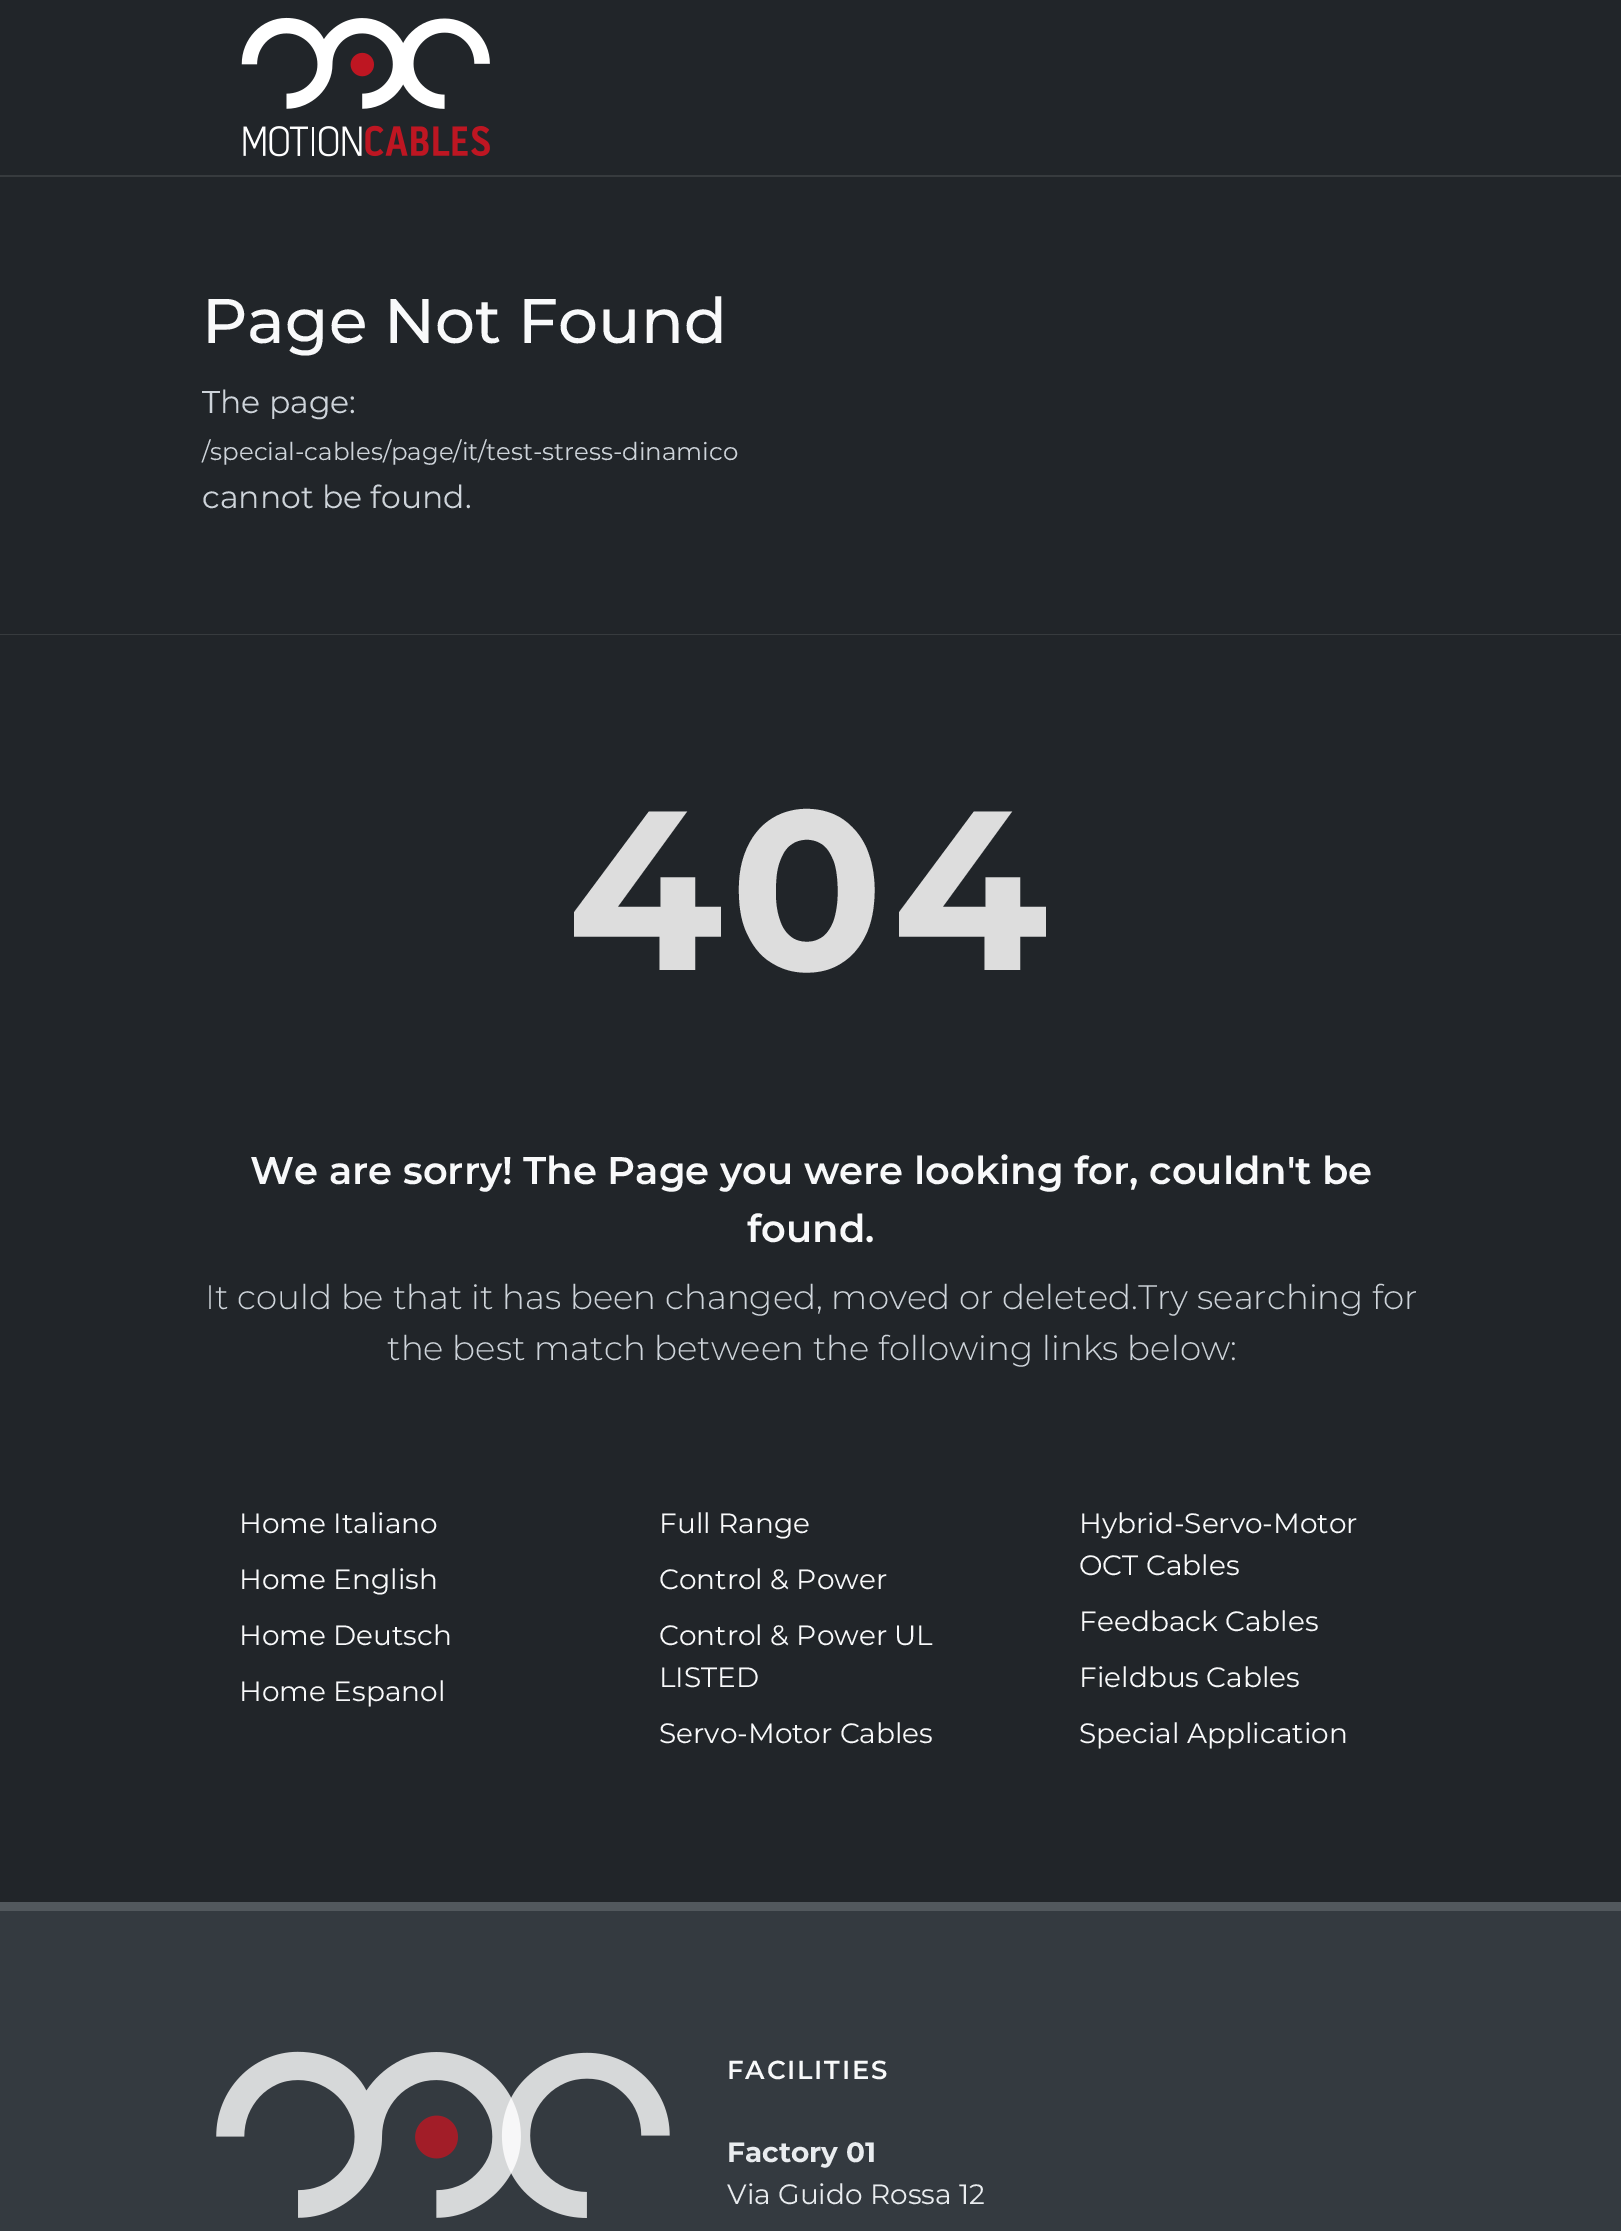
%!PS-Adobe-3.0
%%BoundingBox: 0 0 1621 2231
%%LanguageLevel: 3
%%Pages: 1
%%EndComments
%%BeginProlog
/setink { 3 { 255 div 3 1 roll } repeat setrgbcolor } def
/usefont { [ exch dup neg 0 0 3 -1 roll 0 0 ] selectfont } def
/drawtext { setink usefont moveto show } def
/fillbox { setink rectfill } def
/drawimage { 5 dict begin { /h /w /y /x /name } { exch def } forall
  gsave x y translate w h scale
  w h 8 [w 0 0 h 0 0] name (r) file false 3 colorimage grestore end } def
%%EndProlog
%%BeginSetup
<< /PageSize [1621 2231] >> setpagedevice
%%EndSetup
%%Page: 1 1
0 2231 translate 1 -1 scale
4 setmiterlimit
0 0 1621 2231 33 37 41 fillbox
0 175 1621 2 55 59 62 fillbox
(assets/img1.rgb) 241 17 249 140 drawimage
0 634 1621 1 55 59 62 fillbox
(Page Not Found) 202 343 /Montserrat-Medium 63 248 249 250 drawtext
(The page:) 202 413 /Montserrat-Regular 31.5 206 212 218 drawtext
(/special-cables/page/it/test-stress-dinamico) 202 460 /Montserrat-Regular 24.5 206 212 218 drawtext
(cannot be found.) 202 508 /Montserrat-Regular 31.5 206 212 218 drawtext
/Montserrat-Bold 227 usefont
221 221 221 setink
567 970 moveto 7 0 (404) ashow
(We are sorry! The Page you were looking for, couldn't be) 250 1184 /Montserrat-SemiBold 38.5 248 249 250 drawtext
(found.) 747 1242 /Montserrat-SemiBold 38.5 248 249 250 drawtext
(It could be that it has been changed, moved or deleted.Try searching for) 205 1309 /Montserrat-Light 34 206 212 218 drawtext
(the best match between the following links below:) 387 1360 /Montserrat-Light 34 206 212 218 drawtext
(Home Italiano) 239 1533 /Montserrat-Regular 28 248 249 250 drawtext
(Home English) 239 1589 /Montserrat-Regular 28 248 249 250 drawtext
(Home Deutsch) 239 1645 /Montserrat-Regular 28 248 249 250 drawtext
(Home Espanol) 239 1701 /Montserrat-Regular 28 248 249 250 drawtext
(Full Range) 659 1533 /Montserrat-Regular 28 248 249 250 drawtext
(Control & Power) 659 1589 /Montserrat-Regular 28 248 249 250 drawtext
(Control & Power UL) 659 1645 /Montserrat-Regular 28 248 249 250 drawtext
(LISTED) 659 1687 /Montserrat-Regular 28 248 249 250 drawtext
(Servo-Motor Cables) 659 1743 /Montserrat-Regular 28 248 249 250 drawtext
(Hybrid-Servo-Motor) 1079 1533 /Montserrat-Regular 28 248 249 250 drawtext
(OCT Cables) 1079 1575 /Montserrat-Regular 28 248 249 250 drawtext
(Feedback Cables) 1079 1631 /Montserrat-Regular 28 248 249 250 drawtext
(Fieldbus Cables) 1079 1687 /Montserrat-Regular 28 248 249 250 drawtext
(Special Application) 1079 1743 /Montserrat-Regular 28 248 249 250 drawtext
0 1911 1621 320 52 58 64 fillbox
0 1902 1621 9 82 88 93 fillbox
(assets/img2.rgb) 216 2051 454 167 drawimage
/Montserrat-SemiBold 26 usefont
248 249 250 setink
727 2079 moveto 1.75 0 (FACILITIES) ashow
(Factory 01) 727 2162 /Montserrat-Bold 28 233 236 239 drawtext
(Via Guido Rossa 12) 727 2204 /Montserrat-Regular 28 233 236 239 drawtext
showpage
%%EOF
